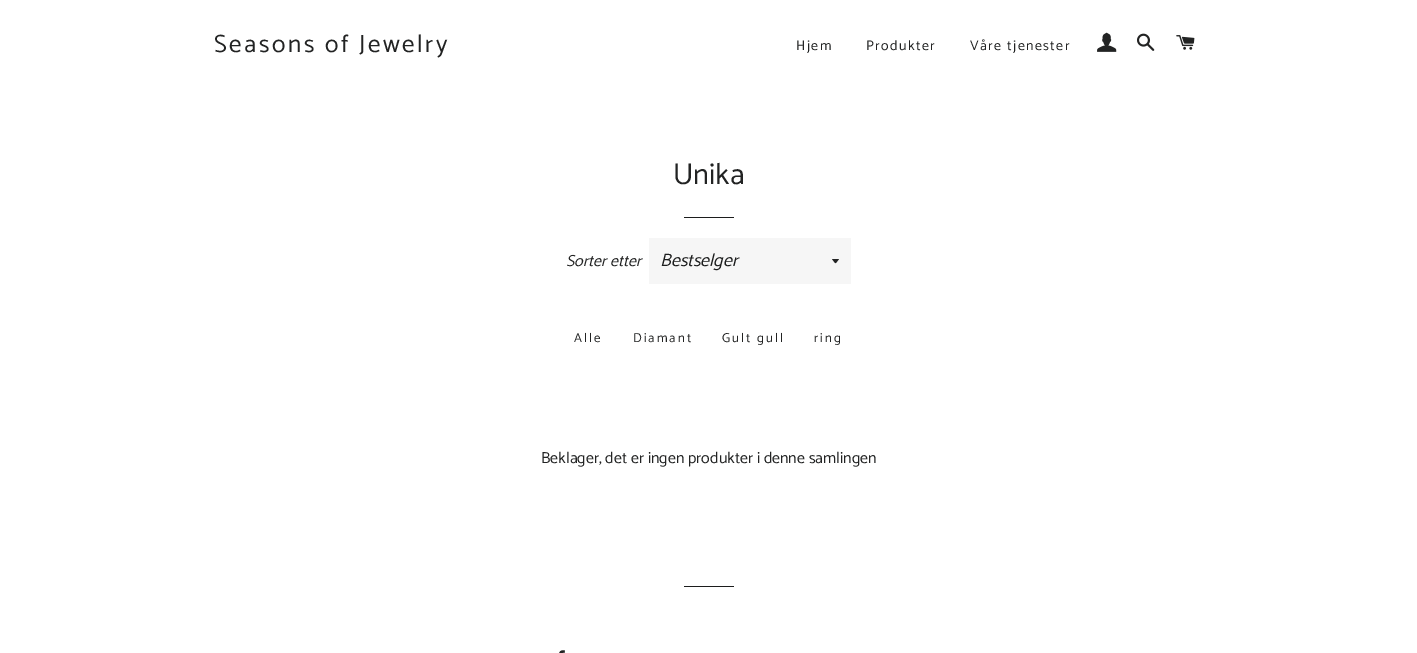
%!PS-Adobe-3.0
%%BoundingBox: 0 0 1417 653
%%LanguageLevel: 3
%%Pages: 1
%%EndComments
%%BeginProlog
/setink { 3 { 255 div 3 1 roll } repeat setrgbcolor } def
/usefont { [ exch dup neg 0 0 3 -1 roll 0 0 ] selectfont } def
/drawtext { setink usefont moveto show } def
/fillbox { setink rectfill } def
/drawimage { 5 dict begin { /h /w /y /x /name } { exch def } forall
  gsave x y translate w h scale
  w h 8 [w 0 0 h 0 0] name (r) file false 3 colorimage grestore end } def
%%EndProlog
%%BeginSetup
<< /PageSize [1417 653] >> setpagedevice
%%EndSetup
%%Page: 1 1
0 653 translate 1 -1 scale
4 setmiterlimit
0 0 1417 653 255 255 255 fillbox
/Catamaran-Regular 25 usefont
34 35 35 setink
214 52 moveto 2.5 0 (Seasons of Jewelry) ashow
/Catamaran-Regular 14 usefont
796 50 moveto 1.4 0 (Hjem) ashow
866 50 moveto 1.4 0 (Produkter) ashow
970 50 moveto 1.4 0 (Våre tjenester) ashow
(assets/img1.rgb) 1097 32 20 20 drawimage
(assets/img2.rgb) 1137 33 18 18 drawimage
(assets/img3.rgb) 1176 35 19 15 drawimage
(Unika) 673 184 /Catamaran-Regular 30 34 35 35 drawtext
684 217 50 1 28 29 29 fillbox
(Sorter etter) 566 266 /Catamaran-Italic 16 34 35 35 drawtext
649 238 202 46 246 246 246 fillbox
34 35 35 setink
832 259 moveto 836.5 264.5 834.5 264.5 839 259 curveto closepath fill
(Bestselger) 660 266 /Catamaran-Italic 18 28 29 29 drawtext
/Catamaran-Regular 13 usefont
34 35 35 setink
574 342 moveto 2 0 (Alle) ashow
633 342 moveto 2 0 (Diamant) ashow
722 342 moveto 2 0 (Gult gull) ashow
814 342 moveto 2 0 (ring) ashow
(Beklager, det er ingen produkter i denne samlingen) 541 463 /Catamaran-Regular 16 34 35 35 drawtext
684 586 50 1 28 29 29 fillbox
(assets/img4.rgb) 559 650 6 3 drawimage
showpage
%%EOF
